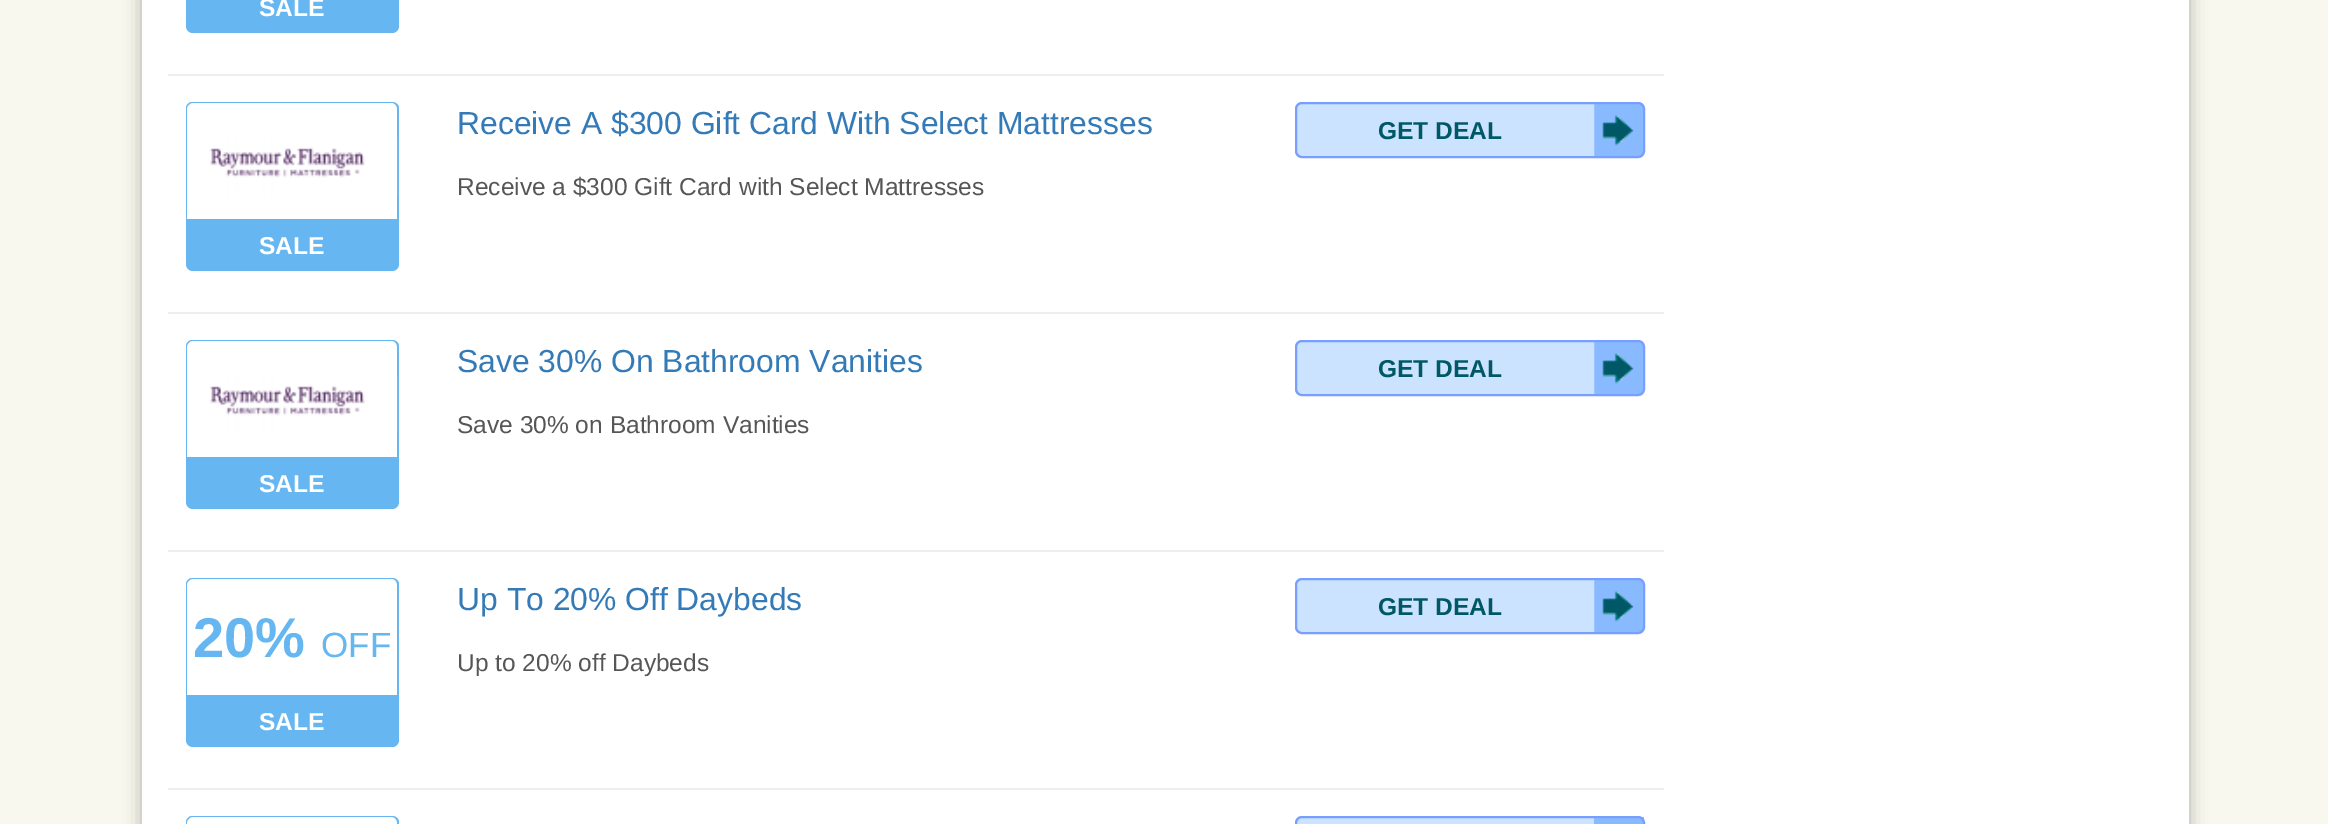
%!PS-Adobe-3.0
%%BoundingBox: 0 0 2328 824
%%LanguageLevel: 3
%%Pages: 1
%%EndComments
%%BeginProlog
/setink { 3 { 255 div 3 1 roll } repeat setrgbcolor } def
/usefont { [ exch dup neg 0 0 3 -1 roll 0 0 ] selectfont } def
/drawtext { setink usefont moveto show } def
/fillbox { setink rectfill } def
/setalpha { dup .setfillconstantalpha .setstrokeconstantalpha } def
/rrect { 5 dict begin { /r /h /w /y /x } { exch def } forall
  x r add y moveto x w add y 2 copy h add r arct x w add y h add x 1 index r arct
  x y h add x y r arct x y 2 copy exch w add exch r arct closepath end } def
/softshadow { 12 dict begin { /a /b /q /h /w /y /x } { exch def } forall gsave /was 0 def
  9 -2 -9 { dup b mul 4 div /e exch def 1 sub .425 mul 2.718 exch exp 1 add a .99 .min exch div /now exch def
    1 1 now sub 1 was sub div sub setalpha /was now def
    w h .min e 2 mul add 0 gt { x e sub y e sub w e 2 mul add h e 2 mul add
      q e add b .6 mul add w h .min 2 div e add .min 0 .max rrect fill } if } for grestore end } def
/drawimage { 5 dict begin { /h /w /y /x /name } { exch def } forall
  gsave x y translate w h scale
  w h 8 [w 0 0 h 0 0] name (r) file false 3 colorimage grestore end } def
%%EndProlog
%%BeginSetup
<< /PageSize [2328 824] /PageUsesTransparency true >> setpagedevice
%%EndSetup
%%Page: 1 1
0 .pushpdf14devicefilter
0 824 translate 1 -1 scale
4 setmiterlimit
0 0 2328 824 249 248 238 fillbox
0 0 0 setink
142 -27 2047 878 0 9 0.3 softshadow
142 0 2047 824 255 255 255 fillbox
168 74 1496 2 238 238 238 fillbox
102 182 241 setink
186 -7 moveto 399 -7 lineto 399 26 lineto 399 30 396 33 392 33 curveto 193 33 lineto 189 33 186 30 186 26 curveto closepath fill
(SALE) 259 16 /LiberationSans-Bold 24.5 255 255 255 drawtext
168 312 1496 2 238 238 238 fillbox
(Receive A $300 Gift Card With Select Mattresses) 457 134 /LiberationSans-Regular 31.85 51 122 183 drawtext
203 227 255 setink
1295 102 350 56 7 rrect fill
(assets/img1.rgb) 1594 103 50 53 drawimage
120 158 255 setink
2 setlinewidth
1296 103 348 54 6 rrect stroke
(GET DEAL) 1378 139 /LiberationSans-Bold 24.5 0 88 102 drawtext
(Receive a $300 Gift Card with Select Mattresses) 457 195 /LiberationSans-Regular 24.5 86 86 86 drawtext
102 182 241 setink
192 102 moveto 392 102 lineto 396 102 399 105 399 108 curveto 399 219 lineto 186 219 lineto 186 108 lineto 186 105 189 102 192 102 curveto closepath 192 103 moveto 392 103 lineto 395 103 397 106 397 108 curveto 397 219 lineto 187 219 lineto 187 108 lineto 187 106 190 103 192 103 curveto closepath eofill
(assets/img2.rgb) 209 138 189 58 drawimage
186 219 moveto 399 219 lineto 399 264 lineto 399 268 396 271 392 271 curveto 193 271 lineto 189 271 186 268 186 264 curveto closepath fill
(SALE) 259 254 /LiberationSans-Bold 24.5 255 255 255 drawtext
168 550 1496 2 238 238 238 fillbox
(Save 30% On Bathroom Vanities) 457 372 /LiberationSans-Regular 31.85 51 122 183 drawtext
203 227 255 setink
1295 340 350 56 7 rrect fill
(assets/img3.rgb) 1594 341 50 53 drawimage
120 158 255 setink
1296 341 348 54 6 rrect stroke
(GET DEAL) 1378 377 /LiberationSans-Bold 24.5 0 88 102 drawtext
(Save 30% on Bathroom Vanities) 457 433 /LiberationSans-Regular 24.5 86 86 86 drawtext
102 182 241 setink
192 340 moveto 392 340 lineto 396 340 399 343 399 346 curveto 399 457 lineto 186 457 lineto 186 346 lineto 186 343 189 340 192 340 curveto closepath 192 341 moveto 392 341 lineto 395 341 397 344 397 346 curveto 397 457 lineto 187 457 lineto 187 346 lineto 187 344 190 341 192 341 curveto closepath eofill
(assets/img4.rgb) 209 376 189 58 drawimage
186 457 moveto 399 457 lineto 399 502 lineto 399 506 396 509 392 509 curveto 193 509 lineto 189 509 186 506 186 502 curveto closepath fill
(SALE) 259 492 /LiberationSans-Bold 24.5 255 255 255 drawtext
168 788 1496 2 238 238 238 fillbox
102 182 241 setink
192 578 moveto 392 578 lineto 396 578 399 581 399 584 curveto 399 695 lineto 186 695 lineto 186 584 lineto 186 581 189 578 192 578 curveto closepath 192 579 moveto 392 579 lineto 395 579 397 582 397 584 curveto 397 695 lineto 187 695 lineto 187 584 lineto 187 582 190 579 192 579 curveto closepath eofill
(20%) 193 657 /LiberationSans-Bold 56 102 182 241 drawtext
(OFF) 321 657 /LiberationSans-Regular 35 102 182 241 drawtext
186 695 moveto 399 695 lineto 399 740 lineto 399 744 396 747 392 747 curveto 193 747 lineto 189 747 186 744 186 740 curveto closepath fill
(SALE) 259 730 /LiberationSans-Bold 24.5 255 255 255 drawtext
(Up To 20% Off Daybeds) 457 610 /LiberationSans-Regular 31.85 51 122 183 drawtext
203 227 255 setink
1295 578 350 56 7 rrect fill
(assets/img1.rgb) 1594 579 50 53 drawimage
120 158 255 setink
1296 579 348 54 6 rrect stroke
(GET DEAL) 1378 615 /LiberationSans-Bold 24.5 0 88 102 drawtext
(Up to 20% off Daybeds) 457 671 /LiberationSans-Regular 24.5 86 86 86 drawtext
102 182 241 setink
192 816 moveto 392 816 lineto 396 816 399 819 399 822 curveto 399 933 lineto 186 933 lineto 186 822 lineto 186 819 189 816 192 816 curveto closepath 192 817 moveto 392 817 lineto 395 817 397 820 397 822 curveto 397 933 lineto 187 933 lineto 187 822 lineto 187 820 190 817 192 817 curveto closepath eofill
203 227 255 setink
1295 816 350 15 7 rrect fill
1594 817 50 7 137 186 255 fillbox
120 158 255 setink
1296 817 348 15 6 rrect stroke
.poppdf14devicefilter showpage
%%EOF
